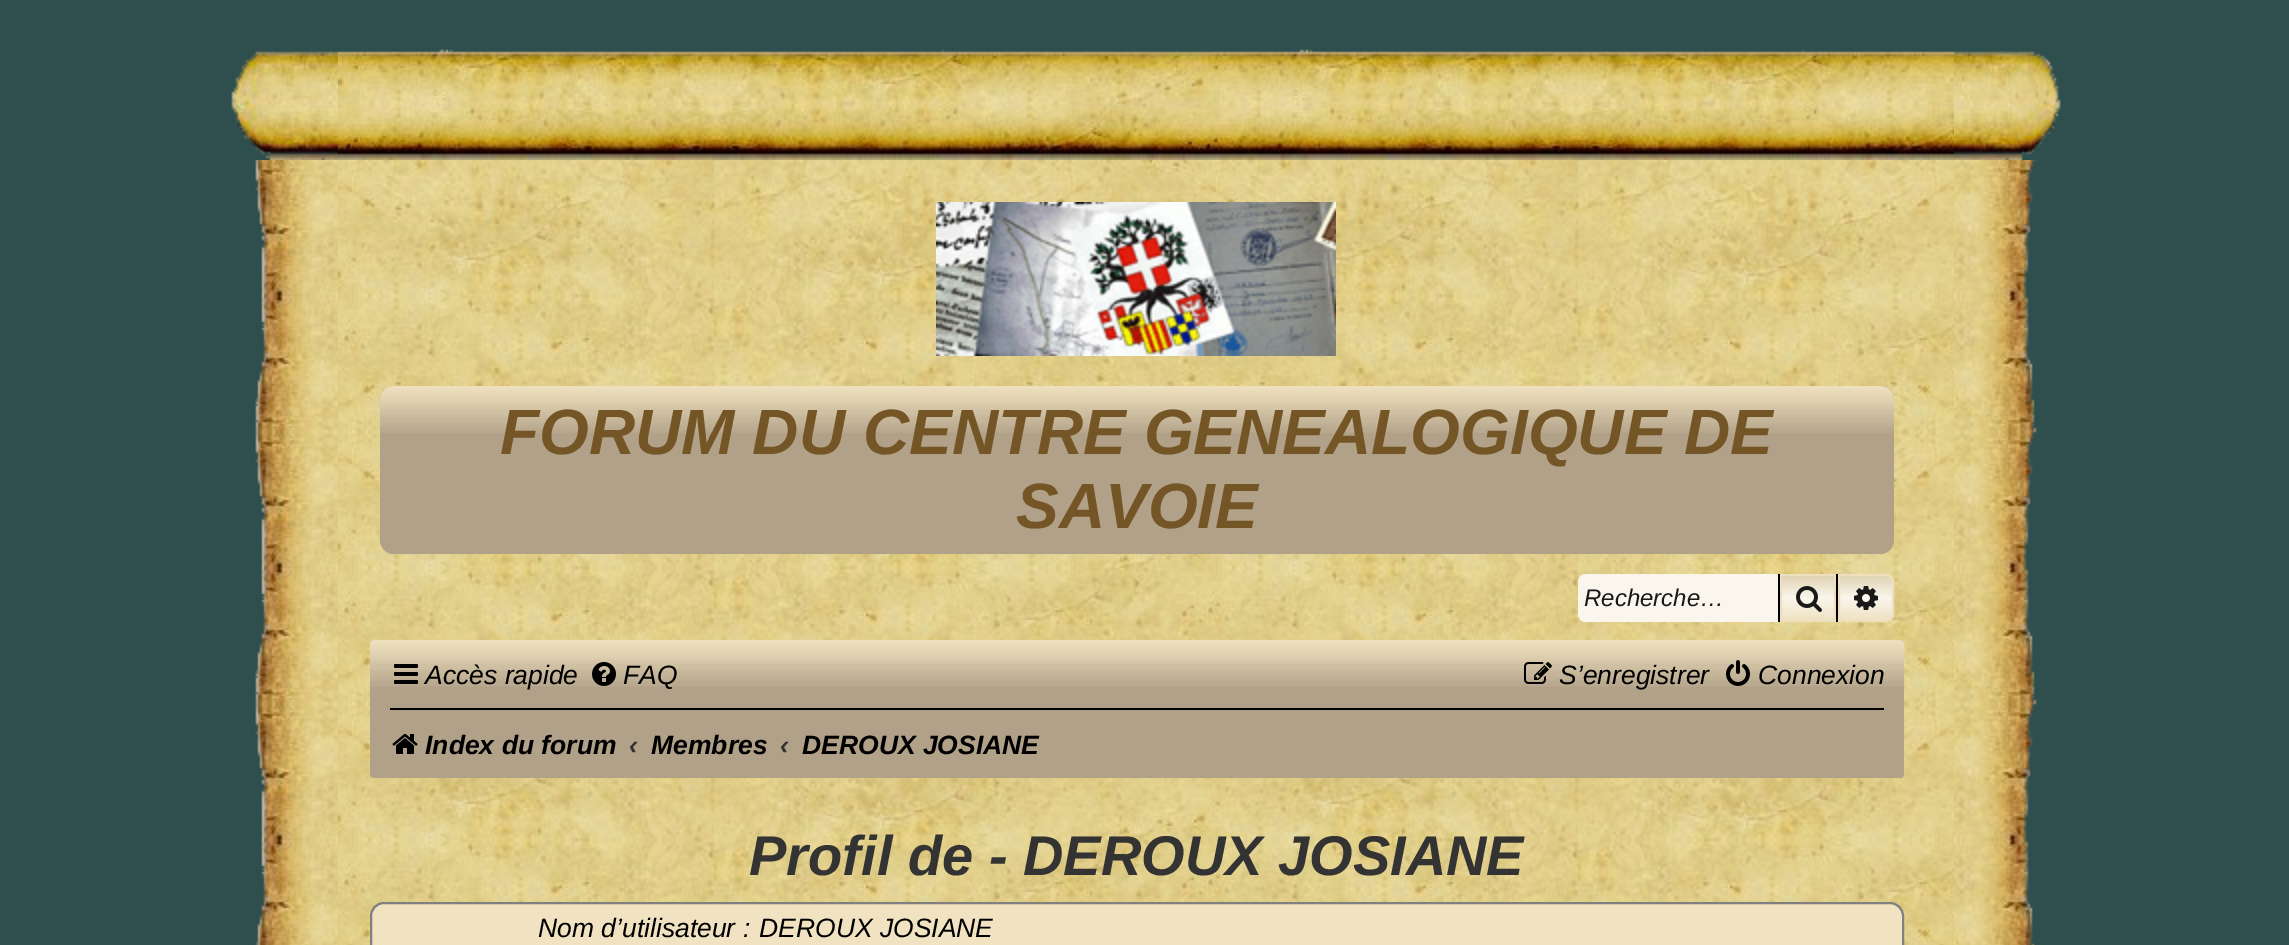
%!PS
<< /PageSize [2289 945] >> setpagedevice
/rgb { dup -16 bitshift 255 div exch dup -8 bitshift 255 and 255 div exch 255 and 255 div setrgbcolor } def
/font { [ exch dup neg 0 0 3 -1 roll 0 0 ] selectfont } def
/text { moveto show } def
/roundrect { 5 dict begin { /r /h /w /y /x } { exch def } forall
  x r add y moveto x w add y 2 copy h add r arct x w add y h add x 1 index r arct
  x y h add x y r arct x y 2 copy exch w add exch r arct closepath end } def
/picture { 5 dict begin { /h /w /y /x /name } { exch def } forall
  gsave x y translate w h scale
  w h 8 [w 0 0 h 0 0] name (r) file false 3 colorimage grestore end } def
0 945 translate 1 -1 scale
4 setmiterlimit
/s1 { /LiberationSans-BoldItalic 64 font 16#745626 rgb } def
/s2 { /LiberationSans-Italic 24 font 16#191919 rgb } def
/s3 { /LiberationSans-Italic 26.5 font 16#000000 rgb } def
/s4 { /LiberationSans-BoldItalic 26.5 font 16#000000 rgb } def
/s5 { /LiberationSans-BoldItalic 26.5 font 16#333333 rgb } def
/s6 { /LiberationSans-BoldItalic 56 font 16#333333 rgb } def
16#2F4F4F rgb
0 0 2289 945 rectfill
(pic1.raw) 231 51 107 109 picture
(pic2.raw) 338 49 1616 111 picture
(pic3.raw) 1954 51 107 109 picture
(pic4.raw) 255 160 83 785 picture
(pic5.raw) 338 160 1616 785 picture
(pic6.raw) 936 202 400 154 picture
16#B1A189 rgb
380 386 1514 168 14 roundrect fill
(pic7.raw) 380 386 1514 47 picture
s1
(FORUM DU CENTRE GENEALOGIQUE DE) 500 454 text
(SAVOIE) 1016 528 text
16#FAF6ED rgb
1586 574 moveto 1778 574 lineto 1778 622 lineto 1586 622 lineto 1581.5 622 1578 618.5 1578 614 curveto 1578 582 lineto 1578 577.5 1581.5 574 1586 574 curveto closepath fill
s2
(Recherche…) 1584 606 text
gsave 1782 576 moveto 1834 576 lineto 1834 620 lineto 1782 620 lineto closepath clip newpath
<< /ShadingType 2 /ColorSpace /DeviceRGB /Coords [1808 574 1808 622] /Extend [true true] /Function << /FunctionType 3 /Domain [0 1] /Functions [<< /FunctionType 2 /Domain [0 1] /C0 [0.871 0.816 0.682] /C1 [0.98 0.965 0.929] /N 1 >> << /FunctionType 2 /Domain [0 1] /C0 [0.98 0.965 0.929] /C1 [0.933 0.878 0.749] /N 1 >>] /Bounds [0.5] /Encode [0 1 0 1] >> >> shfill grestore
16#EEE0BF rgb
2 setlinewidth
1781 575 54 46 rectstroke
16#000000 rgb
1836 574 2 48 rectfill
1778 574 2 48 rectfill
(pic8.raw) 1796 586 26 26 picture
gsave 1839 575 moveto 1886 575 lineto 1890 575 1893 578 1893 582 curveto 1893 614 lineto 1893 618 1890 621 1886 621 curveto 1839 621 lineto closepath clip newpath
<< /ShadingType 2 /ColorSpace /DeviceRGB /Coords [1866 574 1866 622] /Extend [true true] /Function << /FunctionType 3 /Domain [0 1] /Functions [<< /FunctionType 2 /Domain [0 1] /C0 [0.871 0.816 0.682] /C1 [0.98 0.965 0.929] /N 1 >> << /FunctionType 2 /Domain [0 1] /C0 [0.98 0.965 0.929] /C1 [0.933 0.878 0.749] /N 1 >>] /Bounds [0.5] /Encode [0 1 0 1] >> >> shfill grestore
16#EEE0BF rgb
1839 575 moveto 1886 575 lineto 1890 575 1893 578 1893 582 curveto 1893 614 lineto 1893 618 1890 621 1886 621 curveto 1839 621 lineto closepath stroke
(pic9.raw) 1854 586 24 24 picture
16#B1A189 rgb
370 640 1534 138 4 roundrect fill
(pic10.raw) 370 640 1534 47 picture
(pic11.raw) 394 664 24 20 picture
s3
(Accès rapide) 425 684 text
(pic12.raw) 592 662 24 24 picture
(FAQ) 623 684 text
(pic13.raw) 1524 662 28 22 picture
(S’enregistrer) 1559 684 text
(pic14.raw) 1726 660 24 26 picture
(Connexion) 1758 684 text
390 708 1494 2 rectfill
(pic15.raw) 392 734 26 20 picture
s4
(Index du forum) 425 754 text
s5
(‹) 629 754 text
s4
(Membres) 651 754 text
s5
(‹) 780 754 text
s4
(DEROUX JOSIANE) 802 754 text
s6
(Profil de - DEROUX JOSIANE) 749 875 text
16#F1E3C1 rgb
371 903 1532 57 13 roundrect gsave fill grestore
16#808080 rgb
stroke
s3
(Nom d’utilisateur :) 538 937 text
(DEROUX JOSIANE) 759 937 text
(pic16.raw) 1954 160 83 785 picture
showpage
